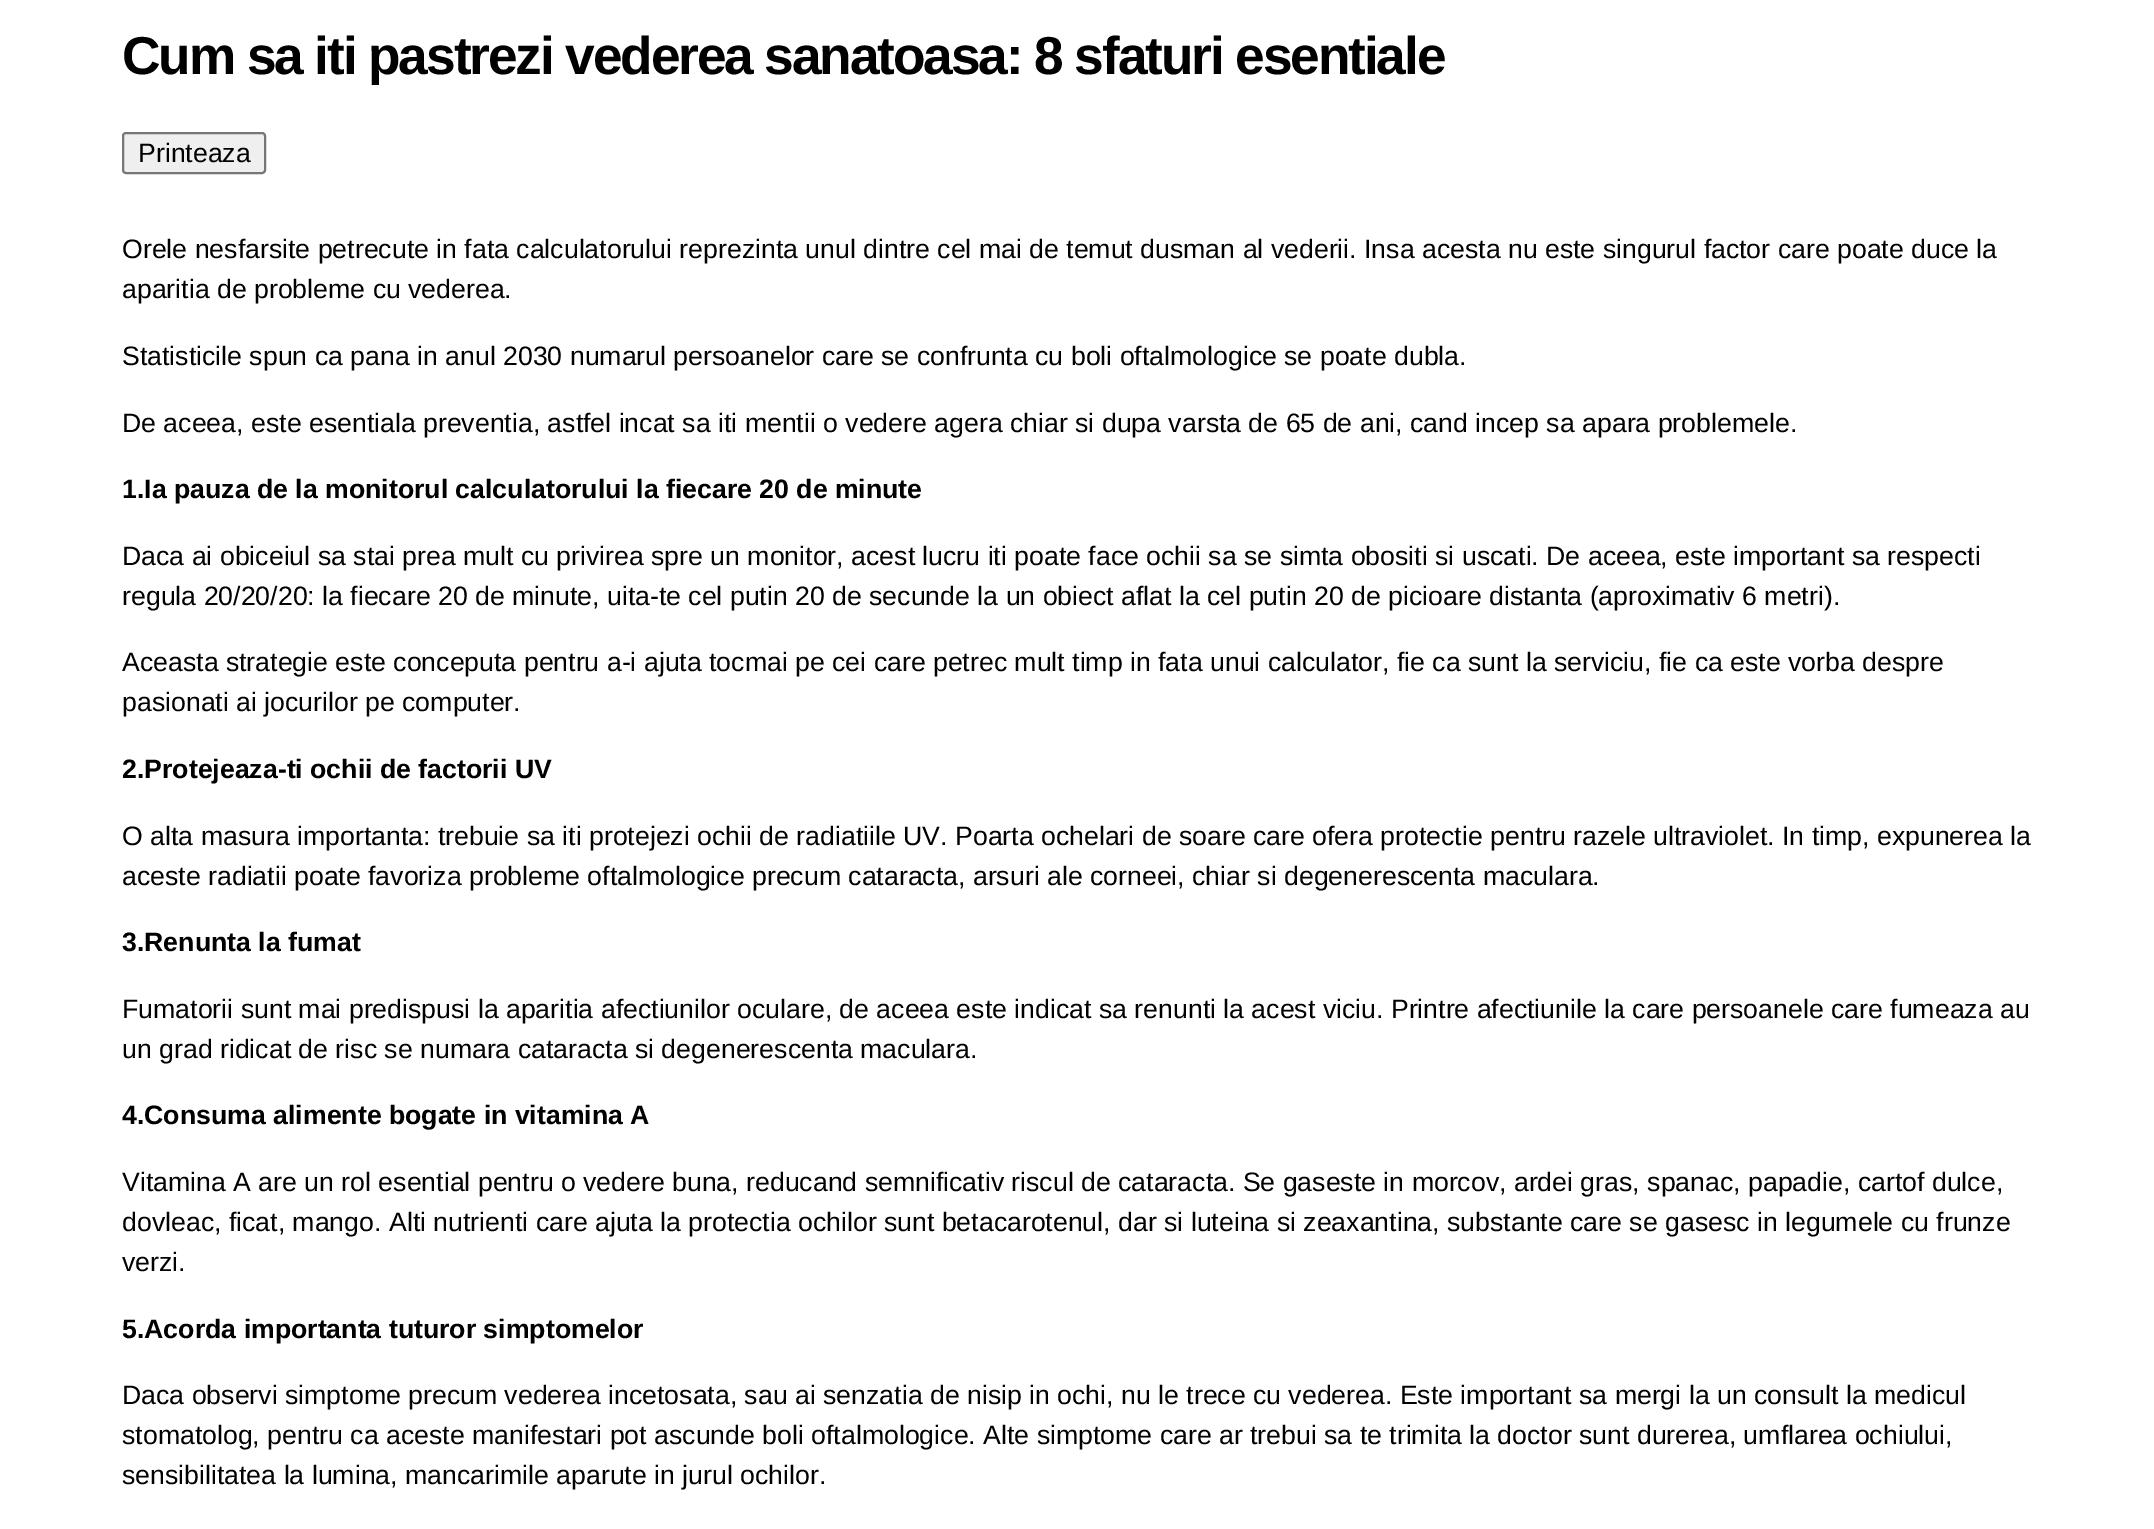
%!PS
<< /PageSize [2154 1529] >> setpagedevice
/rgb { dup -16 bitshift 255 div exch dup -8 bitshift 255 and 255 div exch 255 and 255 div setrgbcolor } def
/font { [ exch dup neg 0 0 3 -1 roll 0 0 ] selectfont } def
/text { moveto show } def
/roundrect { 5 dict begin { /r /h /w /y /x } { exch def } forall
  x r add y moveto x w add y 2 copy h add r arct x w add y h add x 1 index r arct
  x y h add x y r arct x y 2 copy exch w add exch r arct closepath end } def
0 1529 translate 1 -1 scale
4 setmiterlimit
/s1 { /LiberationSans-Regular 26.67 font 16#000000 rgb } def
/s2 { /LiberationSans-Bold 26.67 font 16#000000 rgb } def
16#FFFFFF rgb
0 0 2154 1529 rectfill
/LiberationSans-Bold 53.3 font
16#000000 rgb
122 74 moveto -2.13 0 (Cum sa iti pastrezi vederea sanatoasa: 8 sfaturi esentiale) ashow
16#EFEFEF rgb
123 133 142 40 3 roundrect gsave fill grestore
16#767676 rgb
2 setlinewidth
stroke
s1
(Printeaza) 138 162 text
(Orele nesfarsite petrecute in fata calculatorului reprezinta unul dintre cel mai de temut dusman al vederii. Insa acesta nu este singurul factor care poate duce la) 122 258 text
(aparitia de probleme cu vederea.) 122 298 text
(Statisticile spun ca pana in anul 2030 numarul persoanelor care se confrunta cu boli oftalmologice se poate dubla.) 122 365 text
(De aceea, este esentiala preventia, astfel incat sa iti mentii o vedere agera chiar si dupa varsta de 65 de ani, cand incep sa apara problemele.) 122 432 text
s2
(1.Ia pauza de la monitorul calculatorului la fiecare 20 de minute) 122 498 text
s1
(Daca ai obiceiul sa stai prea mult cu privirea spre un monitor, acest lucru iti poate face ochii sa se simta obositi si uscati. De aceea, este important sa respecti) 122 565 text
(regula 20/20/20: la fiecare 20 de minute, uita-te cel putin 20 de secunde la un obiect aflat la cel putin 20 de picioare distanta \(aproximativ 6 metri\).) 122 605 text
(Aceasta strategie este conceputa pentru a-i ajuta tocmai pe cei care petrec mult timp in fata unui calculator, fie ca sunt la serviciu, fie ca este vorba despre) 122 671 text
(pasionati ai jocurilor pe computer.) 122 711 text
s2
(2.Protejeaza-ti ochii de factorii UV) 122 778 text
s1
(O alta masura importanta: trebuie sa iti protejezi ochii de radiatiile UV. Poarta ochelari de soare care ofera protectie pentru razele ultraviolet. In timp, expunerea la) 122 845 text
(aceste radiatii poate favoriza probleme oftalmologice precum cataracta, arsuri ale corneei, chiar si degenerescenta maculara.) 122 885 text
s2
(3.Renunta la fumat) 122 951 text
s1
(Fumatorii sunt mai predispusi la aparitia afectiunilor oculare, de aceea este indicat sa renunti la acest viciu. Printre afectiunile la care persoanele care fumeaza au) 122 1018 text
(un grad ridicat de risc se numara cataracta si degenerescenta maculara.) 122 1058 text
s2
(4.Consuma alimente bogate in vitamina A) 122 1124 text
s1
(Vitamina A are un rol esential pentru o vedere buna, reducand semnificativ riscul de cataracta. Se gaseste in morcov, ardei gras, spanac, papadie, cartof dulce,) 122 1191 text
(dovleac, ficat, mango. Alti nutrienti care ajuta la protectia ochilor sunt betacarotenul, dar si luteina si zeaxantina, substante care se gasesc in legumele cu frunze) 122 1231 text
(verzi.) 122 1271 text
s2
(5.Acorda importanta tuturor simptomelor) 122 1338 text
s1
(Daca observi simptome precum vederea incetosata, sau ai senzatia de nisip in ochi, nu le trece cu vederea. Este important sa mergi la un consult la medicul) 122 1404 text
(stomatolog, pentru ca aceste manifestari pot ascunde boli oftalmologice. Alte simptome care ar trebui sa te trimita la doctor sunt durerea, umflarea ochiului,) 122 1444 text
(sensibilitatea la lumina, mancarimile aparute in jurul ochilor.) 122 1484 text
showpage
